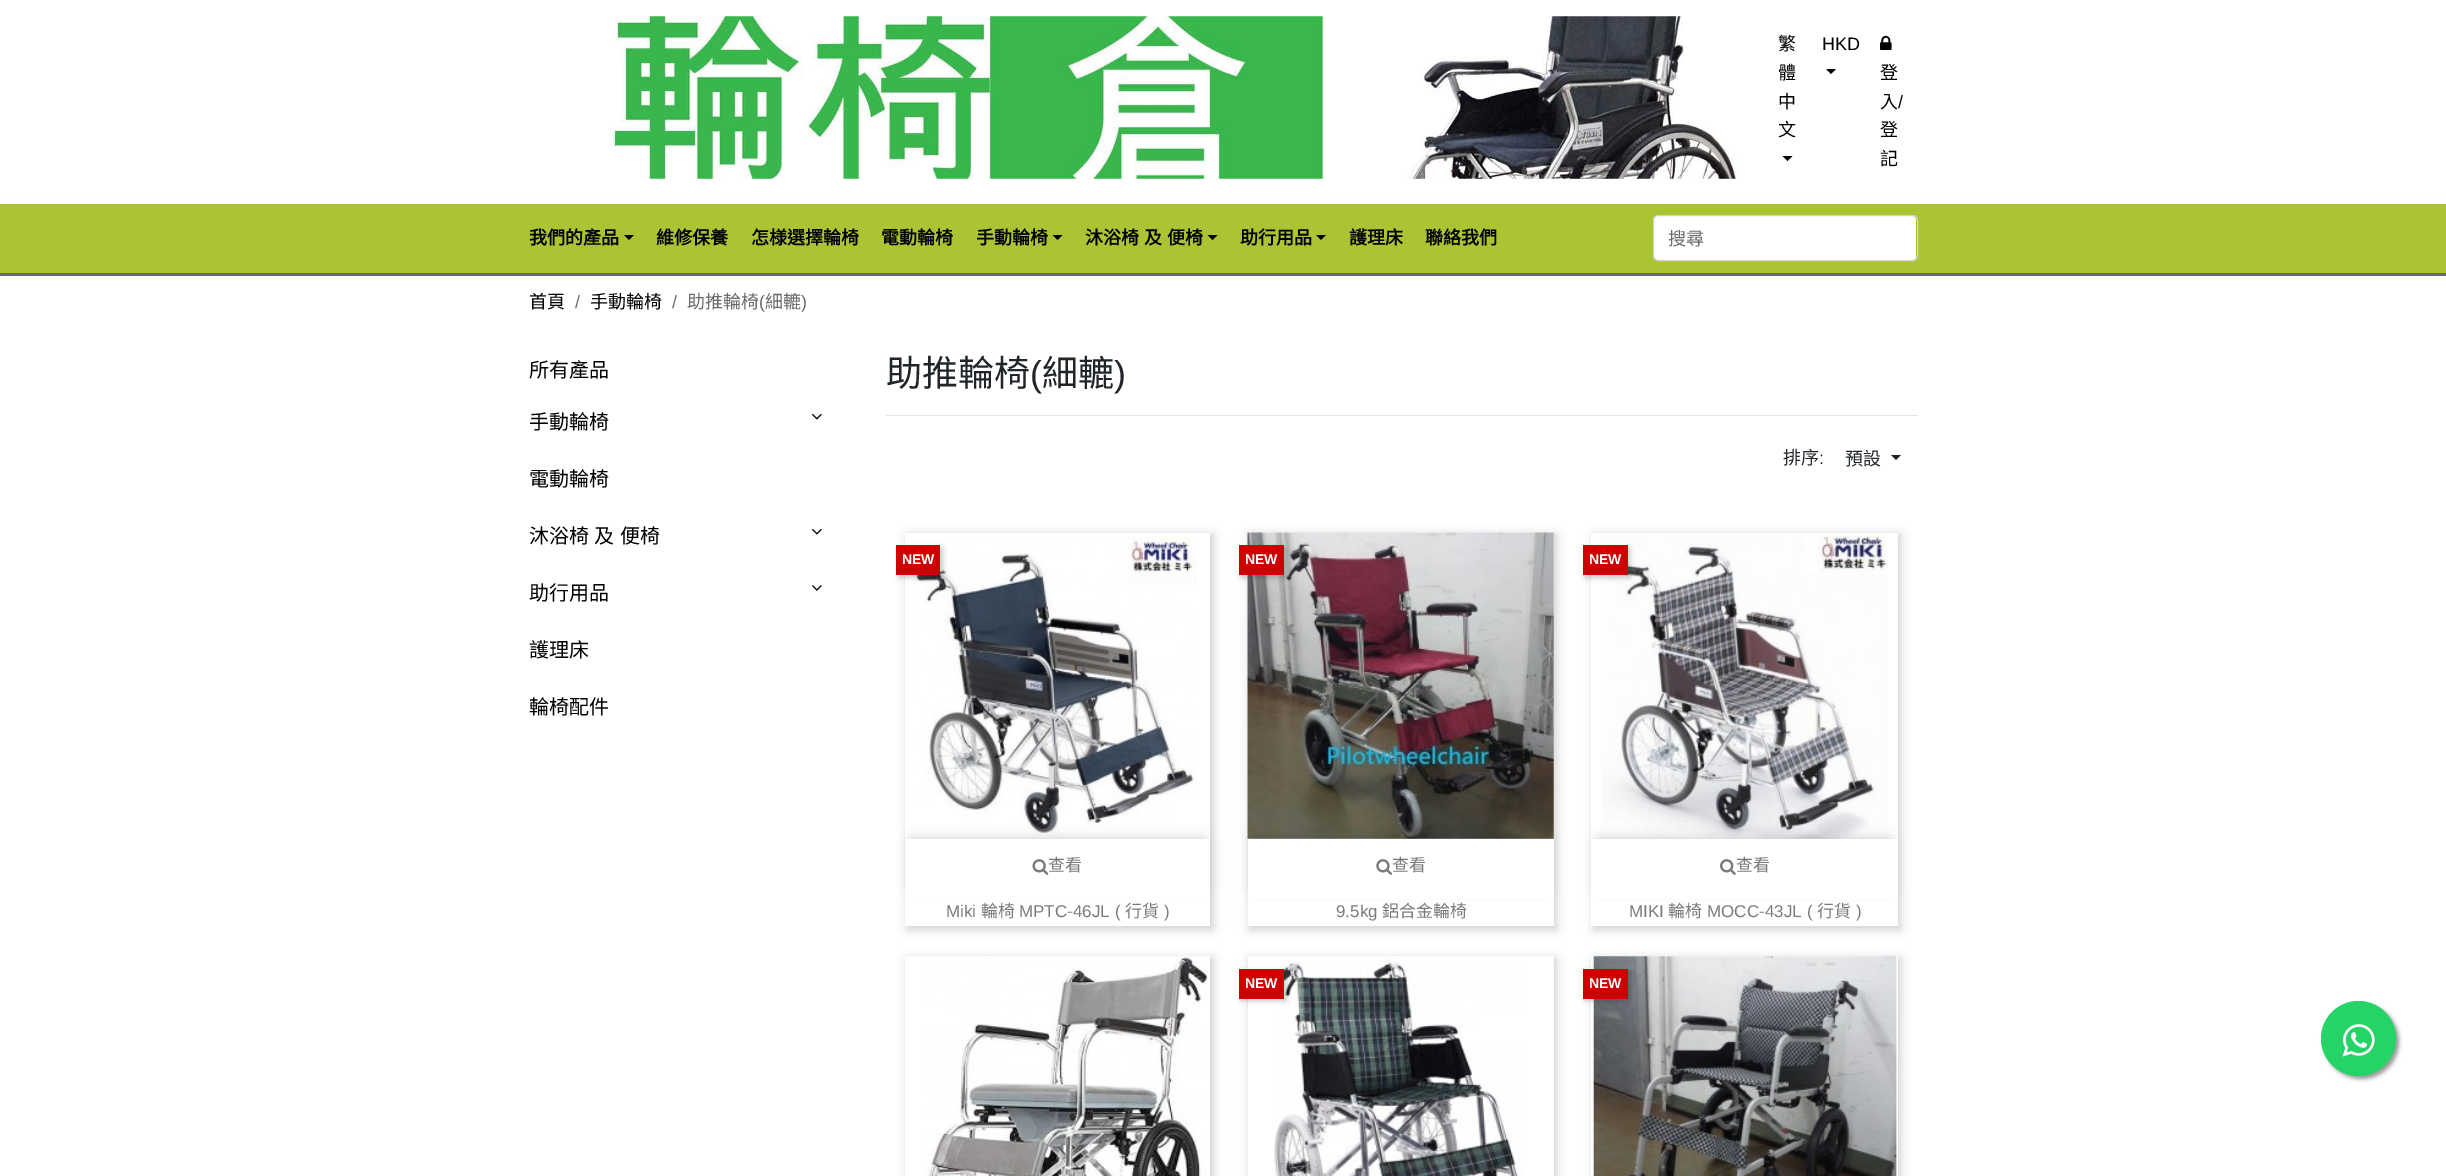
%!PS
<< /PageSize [2446 1176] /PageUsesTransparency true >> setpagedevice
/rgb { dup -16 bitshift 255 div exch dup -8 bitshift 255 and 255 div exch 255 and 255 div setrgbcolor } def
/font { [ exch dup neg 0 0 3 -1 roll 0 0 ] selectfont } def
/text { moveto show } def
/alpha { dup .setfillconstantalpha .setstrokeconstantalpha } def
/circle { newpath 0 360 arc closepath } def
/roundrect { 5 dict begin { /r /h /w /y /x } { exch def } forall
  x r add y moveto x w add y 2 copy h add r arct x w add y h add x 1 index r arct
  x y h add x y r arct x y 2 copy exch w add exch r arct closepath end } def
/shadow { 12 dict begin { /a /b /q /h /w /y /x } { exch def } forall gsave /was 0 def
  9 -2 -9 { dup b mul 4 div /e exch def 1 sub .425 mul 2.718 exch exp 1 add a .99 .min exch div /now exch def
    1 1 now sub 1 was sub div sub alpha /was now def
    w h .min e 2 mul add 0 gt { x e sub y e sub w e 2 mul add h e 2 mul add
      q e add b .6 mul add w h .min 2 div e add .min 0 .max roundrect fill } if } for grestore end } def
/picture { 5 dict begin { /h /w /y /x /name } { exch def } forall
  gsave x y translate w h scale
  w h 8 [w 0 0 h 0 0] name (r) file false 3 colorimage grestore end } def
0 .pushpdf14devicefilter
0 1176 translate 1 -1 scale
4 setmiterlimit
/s1 { /NotoSansCJKHK-Regular 18 font 16#000000 rgb } def
/s2 { /LiberationSans-Regular 18 font 16#000000 rgb } def
/s3 { /NotoSansCJKHK-Bold 18 font 16#000000 rgb } def
/s4 { /NotoSansCJKHK-Regular 18 font 16#6A6A6A rgb } def
/s5 { /LiberationSans-Regular 18 font 16#6A6A6A rgb } def
/s6 { /NotoSansCJKHK-Regular 20 font 16#000000 rgb } def
/s7 { /NotoSansCJKHK-Regular 36 font 16#212529 rgb } def
/s8 { /LiberationSans-Regular 36 font 16#212529 rgb } def
/s9 { /NotoSansCJKHK-Regular 18 font 16#212529 rgb } def
/s10 { /LiberationSans-Regular 18 font 16#212529 rgb } def
/s11 { /LiberationSans-Bold 14 font 16#FFFFFF rgb } def
/s12 { /NotoSansCJKHK-Regular 17 font 16#7A7A7A rgb } def
/s13 { /LiberationSans-Regular 17 font 16#7A7A7A rgb } def
16#FFFFFF rgb
0 0 2446 1176 rectfill
(pic1.raw) 610 16 1129 163 picture
s1
(繁) 1778 50 text
(體) 1778 79 text
(中) 1778 108 text
(文) 1778 136 text
1782.5 156 moveto 1792.5 156 lineto 1787.5 161 lineto closepath fill
s2
(HKD) 1822 50 text
1826 69 moveto 1836 69 lineto 1831 74 lineto closepath fill
(pic2.raw) 1880 35 12 15 picture
s1
(登) 1880 79 text
(入) 1880 108 text
s2
(/) 1898 108 text
s1
(登) 1880 136 text
(記) 1880 165 text
16#6A6A6A rgb
0 273 2446 3 rectfill
16#ABC434 rgb
0 204 2446 69 rectfill
s3
(我們的產品) 529 244 text
624 235 moveto 634 235 lineto 629 240 lineto closepath fill
(維修保養) 656 244 text
(怎様選擇輪椅) 751 244 text
(電動輪椅) 881 244 text
(手動輪椅) 976 244 text
1052.5 235 moveto 1062.5 235 lineto 1057.5 240 lineto closepath fill
1085 244 moveto 1 0 32 (沐浴椅 及 便椅) widthshow
1207.5 235 moveto 1217.5 235 lineto 1212.5 240 lineto closepath fill
(助行用品) 1240 244 text
1316 235 moveto 1326 235 lineto 1321 240 lineto closepath fill
(護理床) 1349 244 text
(聯絡我們) 1425 244 text
16#FFFFFF rgb
1654 216 262 44 4 roundrect fill
16#CED4DA rgb
1653.5 215.5 264 45 4.5 roundrect stroke
s4
(搜尋) 1668 245 text
s1
(首頁) 529 308 text
s5
(/) 575 308 text
s1
(手動輪椅) 590 308 text
s5
(/) 672 308 text
s4
(助推輪椅) 687 308 text
s5
(\() 759 308 text
s4
(細轆) 765 308 text
s5
(\)) 801 308 text
s6
(所有產品) 529 377 text
(手動輪椅) 529 429 text
(pic3.raw) 812 413 10 7 picture
(電動輪椅) 529 486 text
529 543 moveto 1 0 32 (沐浴椅 及 便椅) widthshow
(pic3.raw) 812 528 10 7 picture
(助行用品) 529 600 text
(pic4.raw) 812 585 10 6 picture
(護理床) 529 657 text
(輪椅配件) 529 714 text
s7
(助推輪椅) 886 386 text
s8
(\() 1030 386 text
s7
(細轆) 1042 386 text
s8
(\)) 1114 386 text
16#E6E6E6 rgb
886 415 1032 1 rectfill
s9
(排序) 1783 464 text
s10
(:) 1819 464 text
s9
(預設) 1845 465 text
1891 455 moveto 1901 455 lineto 1896 460 lineto closepath fill
gsave
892 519 moveto 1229 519 lineto 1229 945 lineto 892 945 lineto closepath 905 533 moveto 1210 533 lineto 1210 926 lineto 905 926 lineto closepath eoclip newpath
16#000000 rgb
908 535 305 394 0 5 0.2 shadow
grestore
(pic5.raw) 914 533 284 302 picture
16#000000 rgb
899 548 44 30 0 2.5 0.2 shadow
16#CF0000 rgb
896 545 44 30 rectfill
s11
(NEW) 902 564 text
gsave
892 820 moveto 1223 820 lineto 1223 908 lineto 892 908 lineto closepath 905 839 moveto 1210 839 lineto 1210 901 lineto 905 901 lineto closepath eoclip newpath
16#000000 rgb
911 839 293 50 0 6 0.2 shadow
grestore
(pic6.raw) 1032 859 17 16 picture
s12
(查看) 1048 871 text
s13
(Miki) 946 917 text
s12
(輪椅) 981 917 text
s13
(MPTC) 1019 917 text
s12
(‑) 1067 917 text
s13
(46JL \() 1073 917 text
s12
(行貨) 1125 917 text
s13
(\)) 1164 917 text
16#000000 rgb
1250 535 306 394 0 5 0.2 shadow
16#FFFFFF rgb
1248 533 306 393 rectfill
(pic7.raw) 1247 532 307 307 picture
16#000000 rgb
1241 548 45 30 0 2.5 0.2 shadow
16#CF0000 rgb
1239 545 45 30 rectfill
s11
(NEW) 1245 564 text
16#000000 rgb
1254 839 294 50 0 6 0.2 shadow
16#FFFFFF rgb
1248 839 306 60 rectfill
(pic8.raw) 1376 859 16 16 picture
s12
(查看) 1392 871 text
s13
(9.5kg) 1336 917 text
s12
(鋁合金輪椅) 1382 917 text
16#000000 rgb
1594 535 306 394 0 5 0.2 shadow
16#FFFFFF rgb
1591 533 307 393 rectfill
(pic9.raw) 1601 533 287 306 picture
16#000000 rgb
1585 548 45 30 0 2.5 0.2 shadow
16#CF0000 rgb
1583 545 45 30 rectfill
s11
(NEW) 1589 564 text
16#000000 rgb
1598 839 293 50 0 6 0.2 shadow
16#FFFFFF rgb
1591 839 307 60 rectfill
(pic10.raw) 1720 859 16 16 picture
s12
(查看) 1736 871 text
s13
(MIKI) 1629 917 text
s12
(輪椅) 1668 917 text
s13
(MOCC) 1707 917 text
s12
(‑) 1759 917 text
s13
(43JL \() 1765 917 text
s12
(行貨) 1817 917 text
s13
(\)) 1856 917 text
16#000000 rgb
908 959 305 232 0 5 0.2 shadow
16#FFFFFF rgb
905 956 305 220 rectfill
(pic11.raw) 926 956 282 220 picture
16#000000 rgb
1250 959 306 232 0 5 0.2 shadow
16#FFFFFF rgb
1248 956 306 220 rectfill
(pic12.raw) 1274 956 248 220 picture
16#000000 rgb
1241 971 45 30 0 2.5 0.2 shadow
16#CF0000 rgb
1239 969 45 30 rectfill
s11
(NEW) 1245 988 text
16#000000 rgb
1594 959 306 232 0 5 0.2 shadow
16#FFFFFF rgb
1591 956 307 220 rectfill
(pic13.raw) 1591 956 307 220 picture
16#000000 rgb
1585 971 45 30 0 2.5 0.2 shadow
16#CF0000 rgb
1583 969 45 30 rectfill
s11
(NEW) 1589 988 text
16#999999 rgb
2324 1004 75 75 37.5 2 1 shadow
16#25D366 rgb
2358.5 1038.5 37.5 circle fill
(pic14.raw) 2342 1024 33 33 picture
.poppdf14devicefilter showpage
